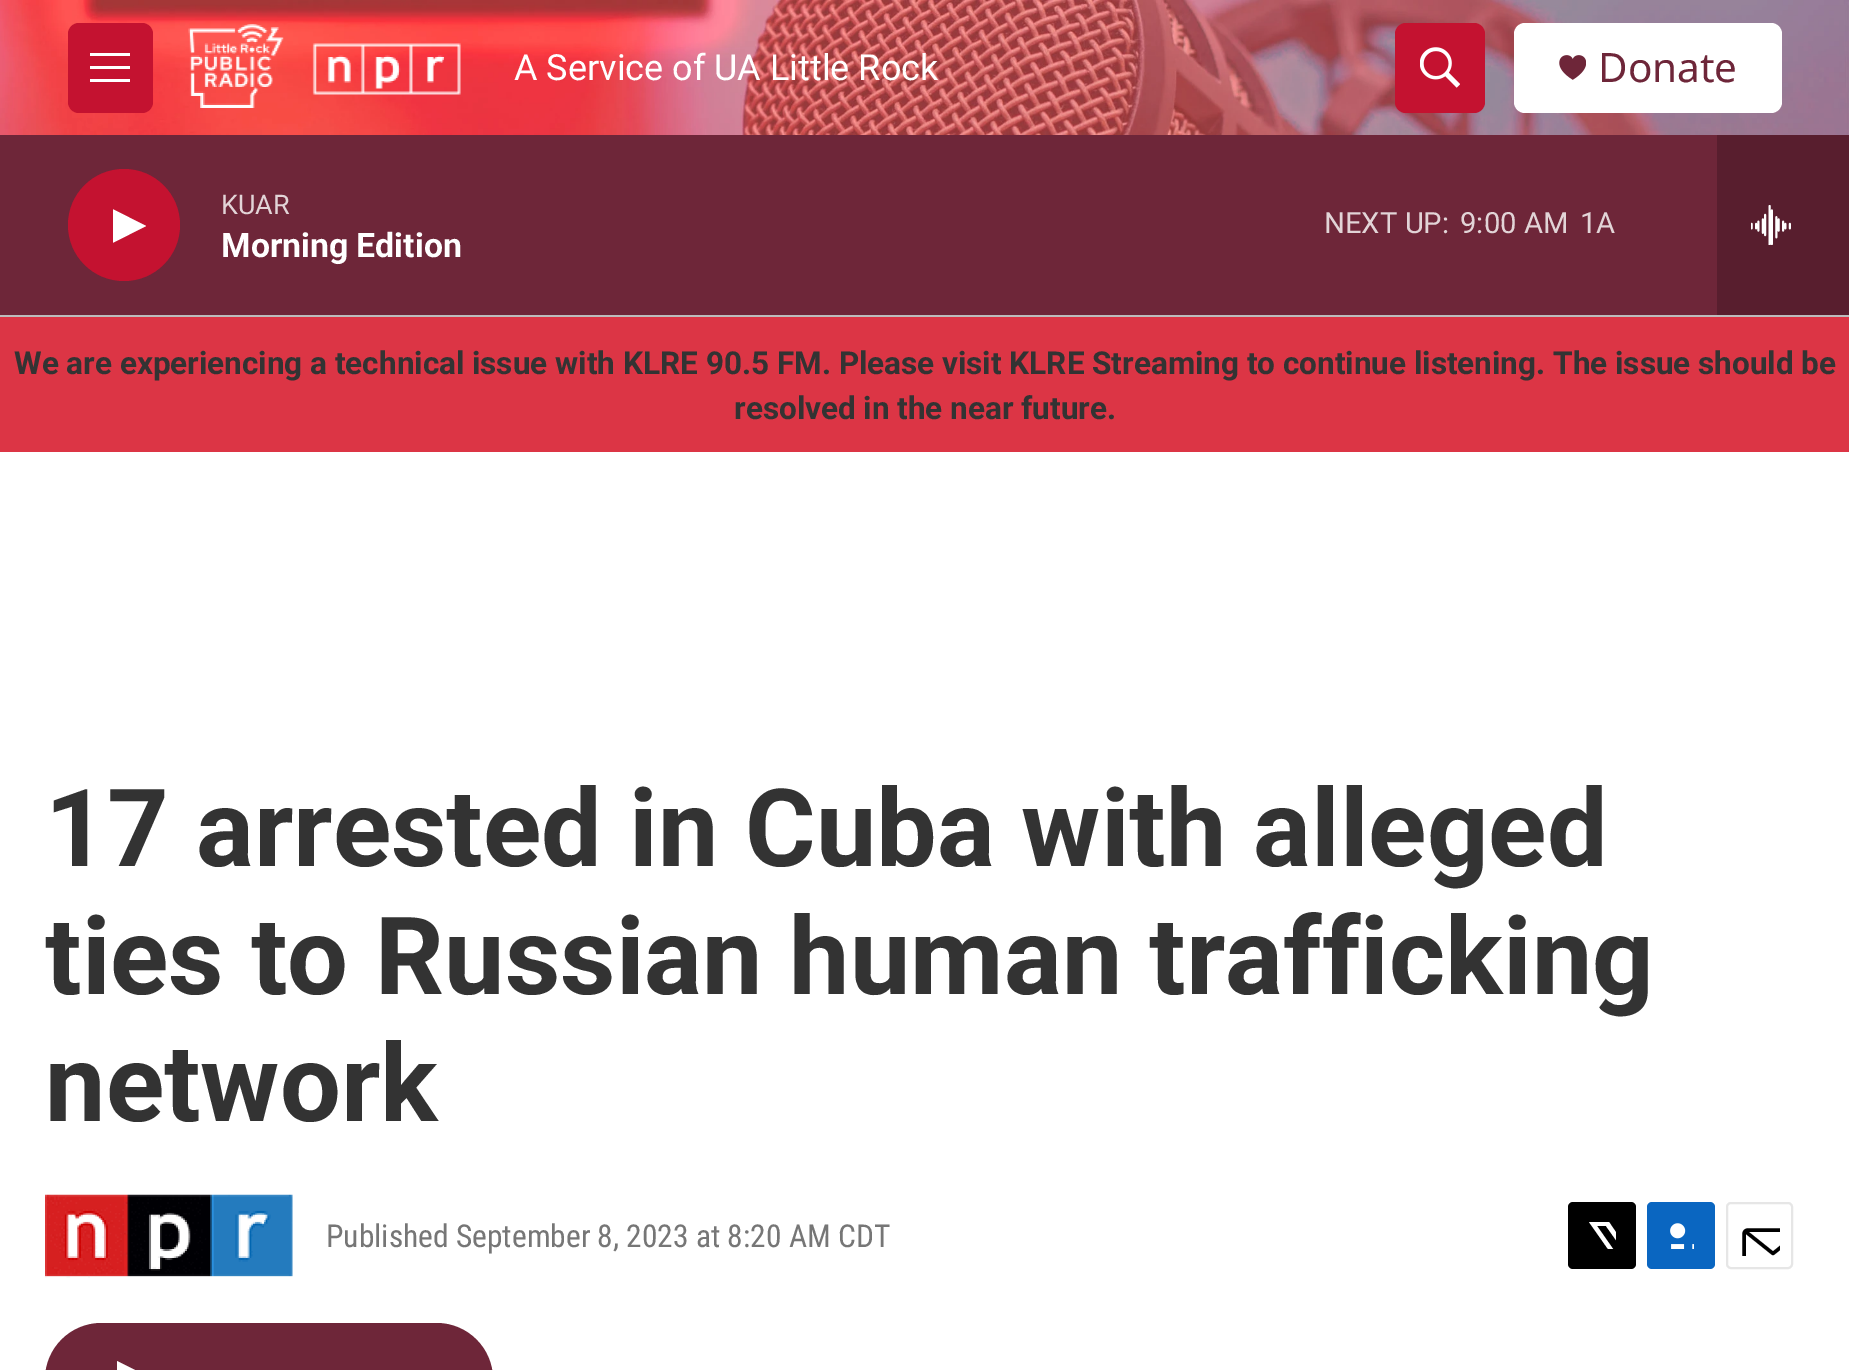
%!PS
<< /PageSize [1849 1370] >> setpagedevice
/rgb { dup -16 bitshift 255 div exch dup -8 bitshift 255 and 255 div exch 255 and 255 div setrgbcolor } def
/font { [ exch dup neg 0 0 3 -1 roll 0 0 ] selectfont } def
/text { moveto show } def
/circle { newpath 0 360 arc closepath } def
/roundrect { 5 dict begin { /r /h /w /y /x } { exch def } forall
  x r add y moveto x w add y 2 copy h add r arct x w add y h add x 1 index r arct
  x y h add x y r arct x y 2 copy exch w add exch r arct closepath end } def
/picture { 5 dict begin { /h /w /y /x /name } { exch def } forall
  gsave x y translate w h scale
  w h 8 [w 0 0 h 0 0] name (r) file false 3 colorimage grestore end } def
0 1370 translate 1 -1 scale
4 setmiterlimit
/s1 { /Roboto-Regular 36 font 16#FFFFFF rgb } def
/s2 { /NotoSans-Regular 40.5 font 16#6E2639 rgb } def
/s3 { /Roboto-Regular 27 font 16#E2D4D7 rgb } def
/s4 { /Roboto-Bold 33.75 font 16#FFFFFF rgb } def
/s5 { /Roboto-Regular 29.25 font 16#E2D4D7 rgb } def
/s6 { /Roboto-Bold 31.5 font 16#333333 rgb } def
/s7 { /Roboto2-Bold 108 font 16#333333 rgb } def
/s8 { /RobotoCondensed-Regular 31.5 font 16#767676 rgb } def
16#FFFFFF rgb
0 0 1849 1370 rectfill
16#6E2639 rgb
0 135 1717 180 rectfill
16#BDBDBD rgb
0 315 1849 2 rectfill
(pic1.raw) 0 0 1849 135 picture
16#C41230 rgb
68 23 85 90 11 roundrect fill
16#FFFFFF rgb
90 69 moveto 90 66 lineto 130 66 lineto 130 69 lineto closepath 90 56 moveto 90 53 lineto 130 53 lineto 130 56 lineto closepath 90 82 moveto 90 79 lineto 130 79 lineto 130 82 lineto closepath eofill
(pic2.raw) 188 24 273 84 picture
s1
(A Service of UA Little Rock) 514 80 text
16#C41230 rgb
1395 23 90 90 11 roundrect fill
(pic3.raw) 1420 47 40 41 picture
16#FFFFFF rgb
1514 23 268 90 11 roundrect fill
(pic4.raw) 1559 55 27 25 picture
s2
(Donate) 1598 82 text
16#C41230 rgb
124 225 56 circle fill
gsave
113 205 33 43 rectclip
16#FFFFFF rgb
112.5 209 moveto 146 226 lineto 112.5 243 lineto closepath fill
grestore
s3
(KUAR) 221 214 text
s4
(Morning Edition) 221 257 text
s5
(NEXT UP:) 1324 233 text
(9:00 AM) 1460 233 text
(1A) 1580 233 text
16#581E2E rgb
1717 135 132 180 rectfill
(pic5.raw) 1751 205 40 40 picture
16#DC3545 rgb
0 317 1849 135 rectfill
s6
(We are experiencing a technical issue with KLRE 90.5 FM. Please visit KLRE Streaming to continue listening. The issue should be) 14 374 text
(resolved in the near future.) 734 419 text
s7
(17 arrested in Cuba with alleged) 45 866 text
(ties to Russian human trafficking) 45 994 text
(network) 45 1121 text
(pic6.raw) 45 1194 248 84 picture
s8
(Published September 8, 2023 at 8:20 AM CDT) 326 1247 text
16#000000 rgb
1568 1202 68 67 5 roundrect fill
gsave
1589 1222 27 27 rectclip
16#FFFFFF rgb
1629 1250 moveto 1636 1260 lineto 1636 1263 1636 1265 1635 1267 curveto 1606 1226 lineto 1597 1226 lineto 1627 1269 lineto 1622 1269 lineto 1618 1263 lineto 1613 1269 lineto 1606 1269 lineto 1615 1259 lineto 1589 1222 lineto 1609 1222 lineto 1626 1247 lineto 1636 1235 lineto 1636 1242 lineto closepath fill
grestore
16#0A66C1 rgb
1647 1202 68 67 5 roundrect fill
(pic7.raw) 1670 1223 24 26 picture
16#E6E6E6 rgb
2 setlinewidth
1727 1203 65 65 4 roundrect stroke
gsave
1739 1215 41 41 rectclip
16#000000 rgb
3.4 setlinewidth
1 setlinecap
1 setlinejoin
1802 1264.5 moveto 1802 1266.5 1800 1268.5 1798 1268.5 curveto 1748 1268.5 lineto 1746 1268.5 1744 1266.5 1744 1264.5 curveto 1744 1234 lineto 1744 1231.5 1746 1230 1748 1230 curveto 1798 1230 lineto 1800 1230 1802 1231.5 1802 1234 curveto closepath 1800.5 1231.5 moveto 1773 1253.5 lineto 1745.5 1231.5 lineto stroke
grestore
16#6E2639 rgb
45 1323 448 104 56.5 roundrect fill
16#FFFFFF rgb
117 1361 moveto 153 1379 lineto 117 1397 lineto closepath fill
showpage
